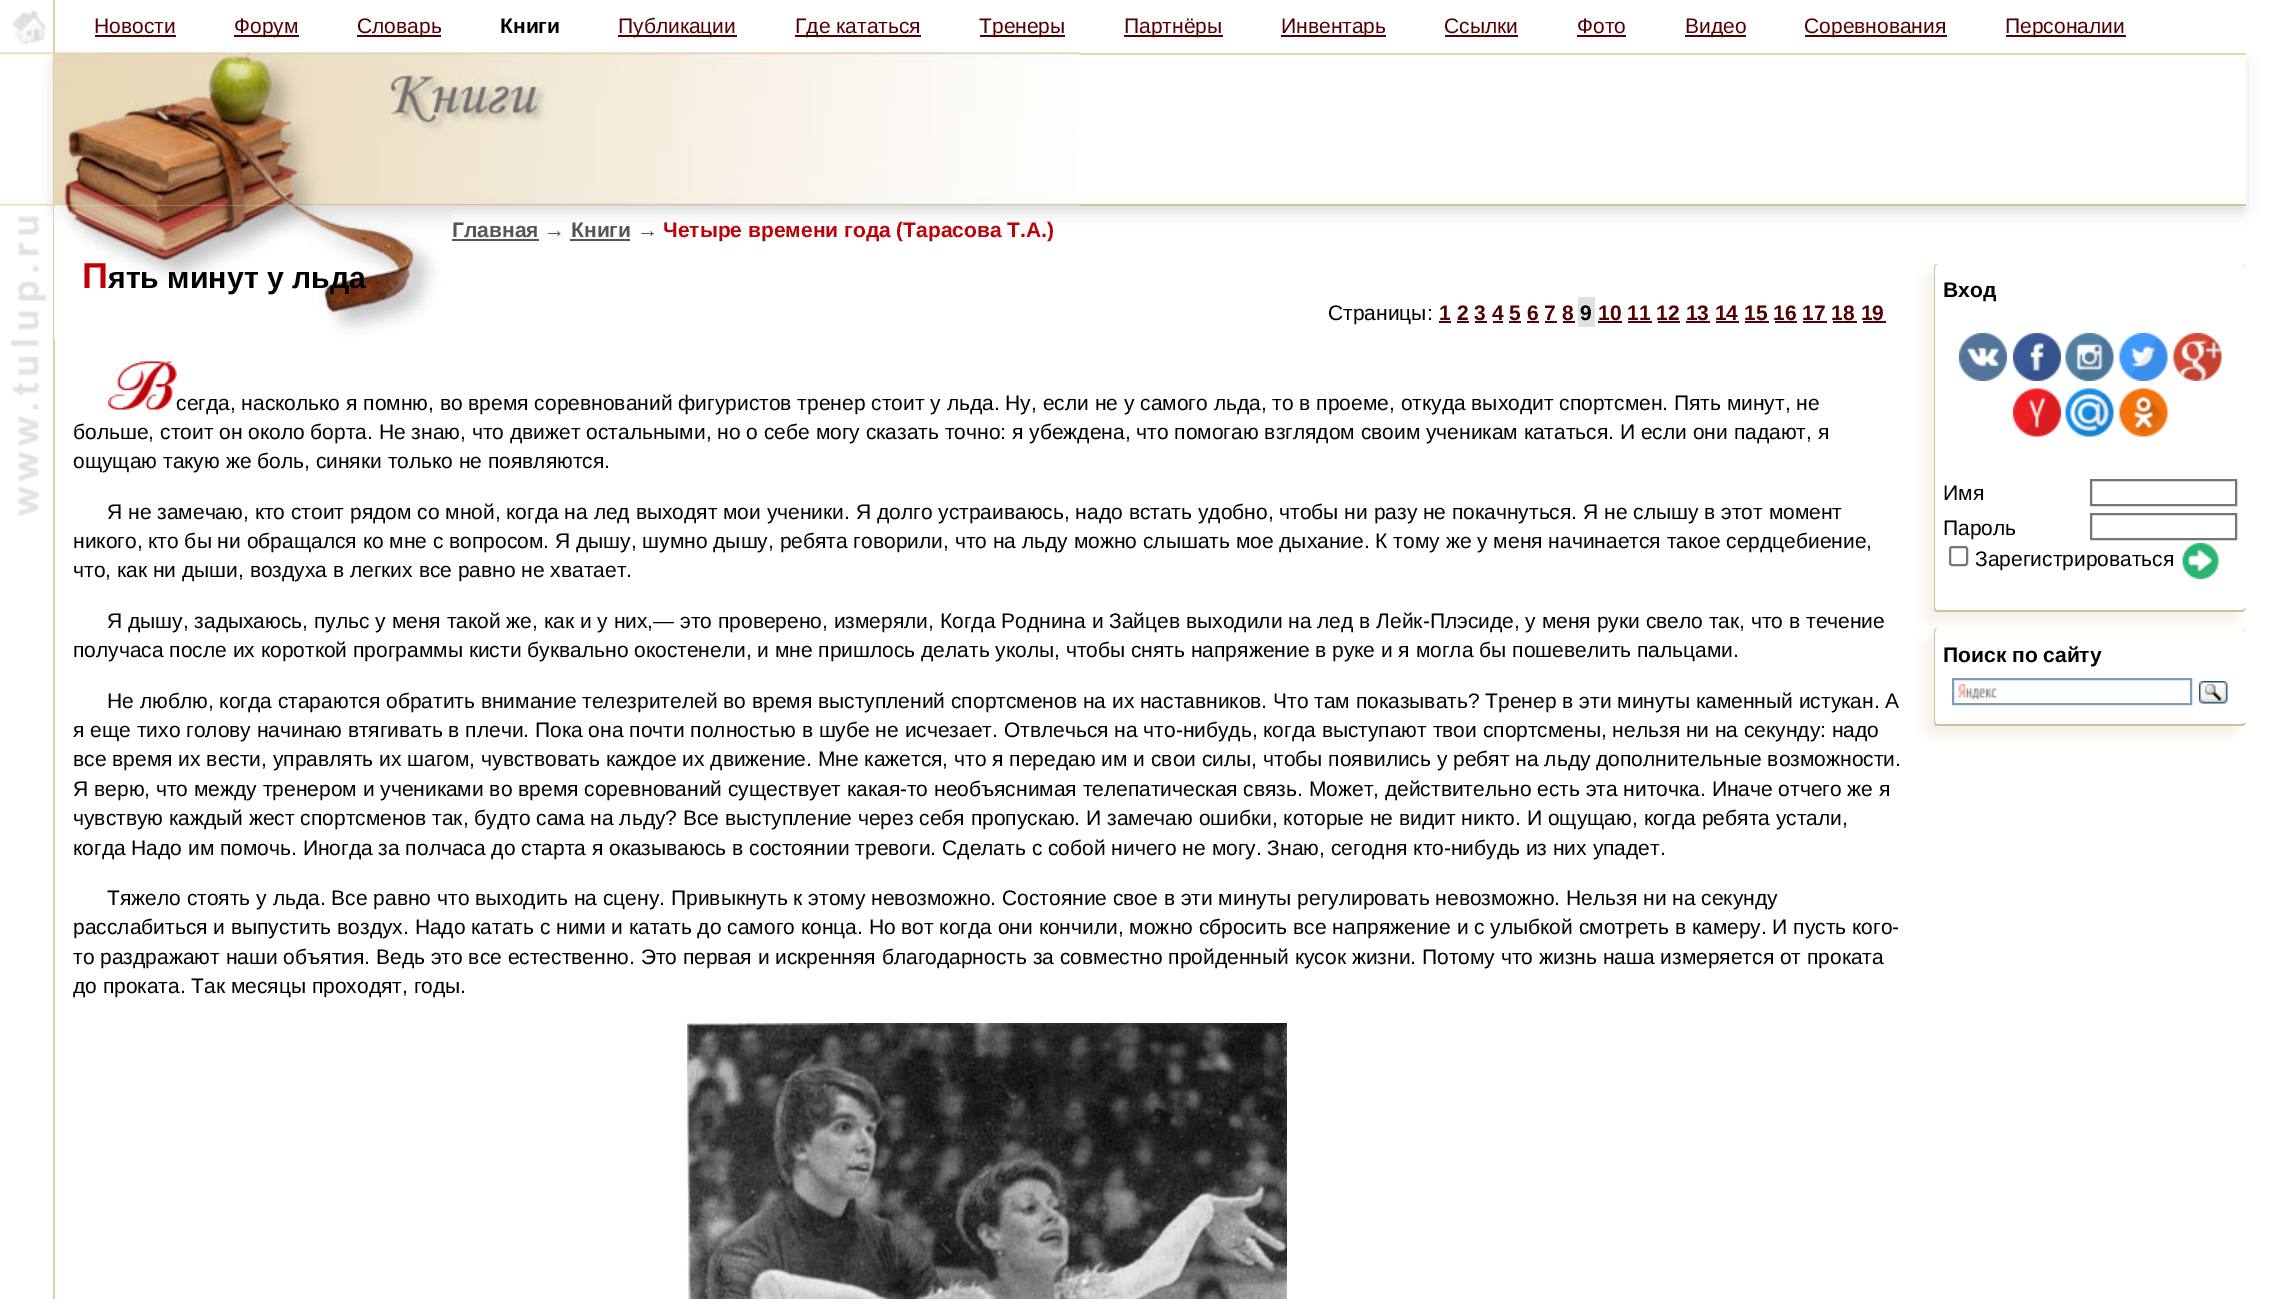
%!PS
<< /PageSize [2275 1299] /PageUsesTransparency true >> setpagedevice
/rgb { dup -16 bitshift 255 div exch dup -8 bitshift 255 and 255 div exch 255 and 255 div setrgbcolor } def
/font { [ exch dup neg 0 0 3 -1 roll 0 0 ] selectfont } def
/text { moveto show } def
/alpha { dup .setfillconstantalpha .setstrokeconstantalpha } def
/roundrect { 5 dict begin { /r /h /w /y /x } { exch def } forall
  x r add y moveto x w add y 2 copy h add r arct x w add y h add x 1 index r arct
  x y h add x y r arct x y 2 copy exch w add exch r arct closepath end } def
/shadow { 12 dict begin { /a /b /q /h /w /y /x } { exch def } forall gsave /was 0 def
  9 -2 -9 { dup b mul 4 div /e exch def 1 sub .425 mul 2.718 exch exp 1 add a .99 .min exch div /now exch def
    1 1 now sub 1 was sub div sub alpha /was now def
    w h .min e 2 mul add 0 gt { x e sub y e sub w e 2 mul add h e 2 mul add
      q e add b .6 mul add w h .min 2 div e add .min 0 .max roundrect fill } if } for grestore end } def
/picture { 5 dict begin { /h /w /y /x /name } { exch def } forall
  gsave x y translate w h scale
  w h 8 [w 0 0 h 0 0] name (r) file false 3 colorimage grestore end } def
0 .pushpdf14devicefilter
0 1299 translate 1 -1 scale
4 setmiterlimit
/s1 { /LiberationSans-Regular 21 font 16#530004 rgb } def
/s2 { /LiberationSans-Bold 21 font 16#000000 rgb } def
/s3 { /LiberationSans-Bold 21 font 16#555555 rgb } def
/s4 { /LiberationSans-Regular 21 font 16#555555 rgb } def
/s5 { /LiberationSans-Bold 21 font 16#BE0009 rgb } def
/s6 { /LiberationSans-Bold 36 font 16#BE0009 rgb } def
/s7 { /LiberationSans-Bold 30.25 font 16#000000 rgb } def
/s8 { /LiberationSans-Regular 21 font 16#000000 rgb } def
/s9 { /LiberationSans-Bold 21 font 16#530004 rgb } def
16#FFFFFF rgb
0 0 2275 1299 rectfill
16#E4DAA8 rgb
1080 53 1166 2 rectfill
16#DED296 rgb
53 0 2 1299 rectfill
(pic1.raw) 0 10 53 506 picture
s1
(Новости) 94 33 text
95 35 81 2 rectfill
234 35 65 2 rectfill
(Форум) 234 33 text
357 35 84 2 rectfill
(Словарь) 357 33 text
s2
(Книги) 500 33 text
16#530004 rgb
618 35 119 2 rectfill
s1
(Публикации) 618 33 text
795 35 126 2 rectfill
(Где кататься) 795 33 text
980 35 85 2 rectfill
(Тренеры) 979 33 text
1124 35 99 2 rectfill
(Партнёры) 1124 33 text
1281 35 105 2 rectfill
(Инвентарь) 1281 33 text
(Ссылки) 1444 33 text
1445 35 73 2 rectfill
(Фото) 1577 33 text
1577 35 49 2 rectfill
1685 35 61 2 rectfill
(Видео) 1685 33 text
1805 35 142 2 rectfill
(Соревнования) 1804 33 text
2006 35 120 2 rectfill
(Персоналии) 2005 33 text
gsave
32 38 moveto 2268 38 lineto 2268 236 lineto 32 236 lineto closepath 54 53 moveto 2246 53 lineto 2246 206 lineto 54 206 lineto closepath eoclip newpath
16#B4B4B4 rgb
56 62 2188 150 0 7.5 0.5 shadow
grestore
(pic2.raw) 54 52 1026 154 picture
0.8 alpha
16#C8B478 rgb
1080 204 1166 2 rectfill
1 alpha
(pic3.raw) 54 205 398 134 picture
s3
(Главная) 452 237 text
452 239 87 2 rectfill
s4
(→) 544 237 text
s3
(Книги) 571 237 text
570 239 60 2 rectfill
s4
(→) 637 237 text
s5
(Четыре времени года \(Тарасова Т.А.\)) 663 237 text
s6
(П) 82 288 text
s7
(ять минут у льда) 108 288 text
s8
(Страницы:) 1328 320 text
s9
(1 2 3 4 5 6 7 8) 1439 320 text
1439 321 12 2 rectfill
16#E0E0E0 rgb
1578 297 17 30 rectfill
s2
(9) 1580 320 text
s9
(10 11 12 13 14 15 16 17 18 19) 1598 320 text
1598 321 24 2 rectfill
1457 321 12 2 rectfill
1475 321 12 2 rectfill
1493 321 10 2 rectfill
1509 321 12 2 rectfill
1527 321 12 2 rectfill
1545 321 12 2 rectfill
1563 321 12 2 rectfill
1628 321 24 2 rectfill
1658 321 22 2 rectfill
1686 321 24 2 rectfill
1716 321 23 2 rectfill
1745 321 24 2 rectfill
1775 321 22 2 rectfill
1803 321 24 2 rectfill
1833 321 24 2 rectfill
1863 321 23 2 rectfill
(pic4.raw) 108 361 69 49 picture
s8
(сегда, насколько я помню, во время соревнований фигуристов тренер стоит у льда. Ну, если не у самого льда, то в проеме, откуда выходит спортсмен. Пять минут, не) 176 410 text
(больше, стоит он около борта. Не знаю, что движет остальными, но о себе могу сказать точно: я убеждена, что помогаю взглядом своим ученикам кататься. И если они падают, я) 73 439 text
(ощущаю такую же боль, синяки только не появляются.) 73 468 text
(Я не замечаю, кто стоит рядом со мной, когда на лед выходят мои ученики. Я долго устраиваюсь, надо встать удобно, чтобы ни разу не покачнуться. Я не слышу в этот момент) 107 519 text
(никого, кто бы ни обращался ко мне с вопросом. Я дышу, шумно дышу, ребята говорили, что на льду можно слышать мое дыхание. К тому же у меня начинается такое сердцебиение,) 73 548 text
(что, как ни дыши, воздуха в легких все равно не хватает.) 73 577 text
(Я дышу, задыхаюсь, пульс у меня такой же, как и у них,— это проверено, измеряли, Когда Роднина и Зайцев выходили на лед в Лейк-Плэсиде, у меня руки свело так, что в течение) 107 628 text
(получаса после их короткой программы кисти буквально окостенели, и мне пришлось делать уколы, чтобы снять напряжение в руке и я могла бы пошевелить пальцами.) 73 657 text
(Не люблю, когда стараются обратить внимание телезрителей во время выступлений спортсменов на их наставников. Что там показывать? Тренер в эти минуты каменный истукан. А) 107 708 text
(я еще тихо голову начинаю втягивать в плечи. Пока она почти полностью в шубе не исчезает. Отвлечься на что-нибудь, когда выступают твои спортсмены, нельзя ни на секунду: надо) 73 737 text
(все время их вести, управлять их шагом, чувствовать каждое их движение. Мне кажется, что я передаю им и свои силы, чтобы появились у ребят на льду дополнительные возможности.) 73 766 text
(Я верю, что между тренером и учениками во время соревнований существует какая-то необъяснимая телепатическая связь. Может, действительно есть эта ниточка. Иначе отчего же я) 73 796 text
(чувствую каждый жест спортсменов так, будто сама на льду? Все выступление через себя пропускаю. И замечаю ошибки, которые не видит никто. И ощущаю, когда ребята устали,) 73 825 text
(когда Надо им помочь. Иногда за полчаса до старта я оказываюсь в состоянии тревоги. Сделать с собой ничего не могу. Знаю, сегодня кто-нибудь из них упадет.) 73 855 text
(Тяжело стоять у льда. Все равно что выходить на сцену. Привыкнуть к этому невозможно. Состояние свое в эти минуты регулировать невозможно. Нельзя ни на секунду) 107 905 text
(расслабиться и выпустить воздух. Надо катать с ними и катать до самого конца. Но вот когда они кончили, можно сбросить все напряжение и с улыбкой смотреть в камеру. И пусть кого-) 73 934 text
(то раздражают наши объятия. Ведь это все естественно. Это первая и искренняя благодарность за совместно пройденный кусок жизни. Потому что жизнь наша измеряется от проката) 73 964 text
(до проката. Так месяцы проходят, годы.) 73 993 text
(pic5.raw) 687 1023 600 276 picture
gsave
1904 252 moveto 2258 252 lineto 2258 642 lineto 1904 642 lineto closepath 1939 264 moveto 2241 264 lineto 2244 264 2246 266 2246 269 curveto 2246 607 lineto 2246 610 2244 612 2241 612 curveto 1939 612 lineto 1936 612 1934 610 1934 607 curveto 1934 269 lineto 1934 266 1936 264 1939 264 curveto closepath eoclip newpath
16#D0C0A0 rgb
1925 273 312 348 5 6.5 0.25 shadow
grestore
16#D0C0A0 rgb
1938 264 moveto 2241 264 lineto 2244 264 2246 266 2246 268 curveto 2246 608 lineto 2246 610 2244 612 2241 612 curveto 1938 612 lineto 1935 612 1934 610 1934 608 curveto 1934 268 lineto 1934 266 1935 264 1938 264 curveto closepath 1938 264 moveto 2241 264 lineto 2244 264 2246 266 2246 268 curveto 2246 608 lineto 2246 609 2244 610 2241 610 curveto 1938 610 lineto 1936 610 1935 609 1935 608 curveto 1935 268 lineto 1935 266 1936 264 1938 264 curveto closepath eofill
s2
(Вход) 1943 297 text
(pic6.raw) 1959 333 48 48 picture
(pic7.raw) 2013 333 48 48 picture
(pic8.raw) 2065 333 49 48 picture
(pic9.raw) 2119 333 49 48 picture
(pic10.raw) 2173 333 49 48 picture
(pic11.raw) 2013 388 48 49 picture
(pic12.raw) 2065 388 49 49 picture
(pic13.raw) 2119 388 49 49 picture
s8
(Имя) 1943 500 text
16#757575 rgb
2 setlinewidth
2091 480 145 25 rectstroke
s8
(Пароль) 1943 535 text
16#757575 rgb
2091 514 145 25 rectstroke
16#767676 rgb
1950 547 17 18 2 roundrect stroke
s8
(Зарегистрироваться) 1975 566 text
(pic14.raw) 2182 543 37 36 picture
gsave
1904 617 moveto 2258 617 lineto 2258 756 lineto 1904 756 lineto closepath 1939 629 moveto 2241 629 lineto 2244 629 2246 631 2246 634 curveto 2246 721 lineto 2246 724 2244 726 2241 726 curveto 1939 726 lineto 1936 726 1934 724 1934 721 curveto 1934 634 lineto 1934 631 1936 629 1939 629 curveto closepath eoclip newpath
16#D0C0A0 rgb
1925 638 312 97 5 6.5 0.25 shadow
grestore
16#D0C0A0 rgb
1938 628 moveto 2241 628 lineto 2244 628 2246 630 2246 633 curveto 2246 722 lineto 2246 724 2244 726 2241 726 curveto 1938 726 lineto 1935 726 1934 724 1934 722 curveto 1934 633 lineto 1934 630 1935 628 1938 628 curveto closepath 1938 628 moveto 2241 628 lineto 2244 628 2246 630 2246 633 curveto 2246 722 lineto 2246 723 2244 724 2241 724 curveto 1938 724 lineto 1936 724 1935 723 1935 722 curveto 1935 633 lineto 1935 630 1936 628 1938 628 curveto closepath eofill
s2
(Поиск по сайту) 1943 662 text
(pic15.raw) 1957 684 40 17 picture
16#7F9DB9 rgb
1953 679 238 25 rectstroke
(pic16.raw) 2199 681 29 23 picture
.poppdf14devicefilter showpage
